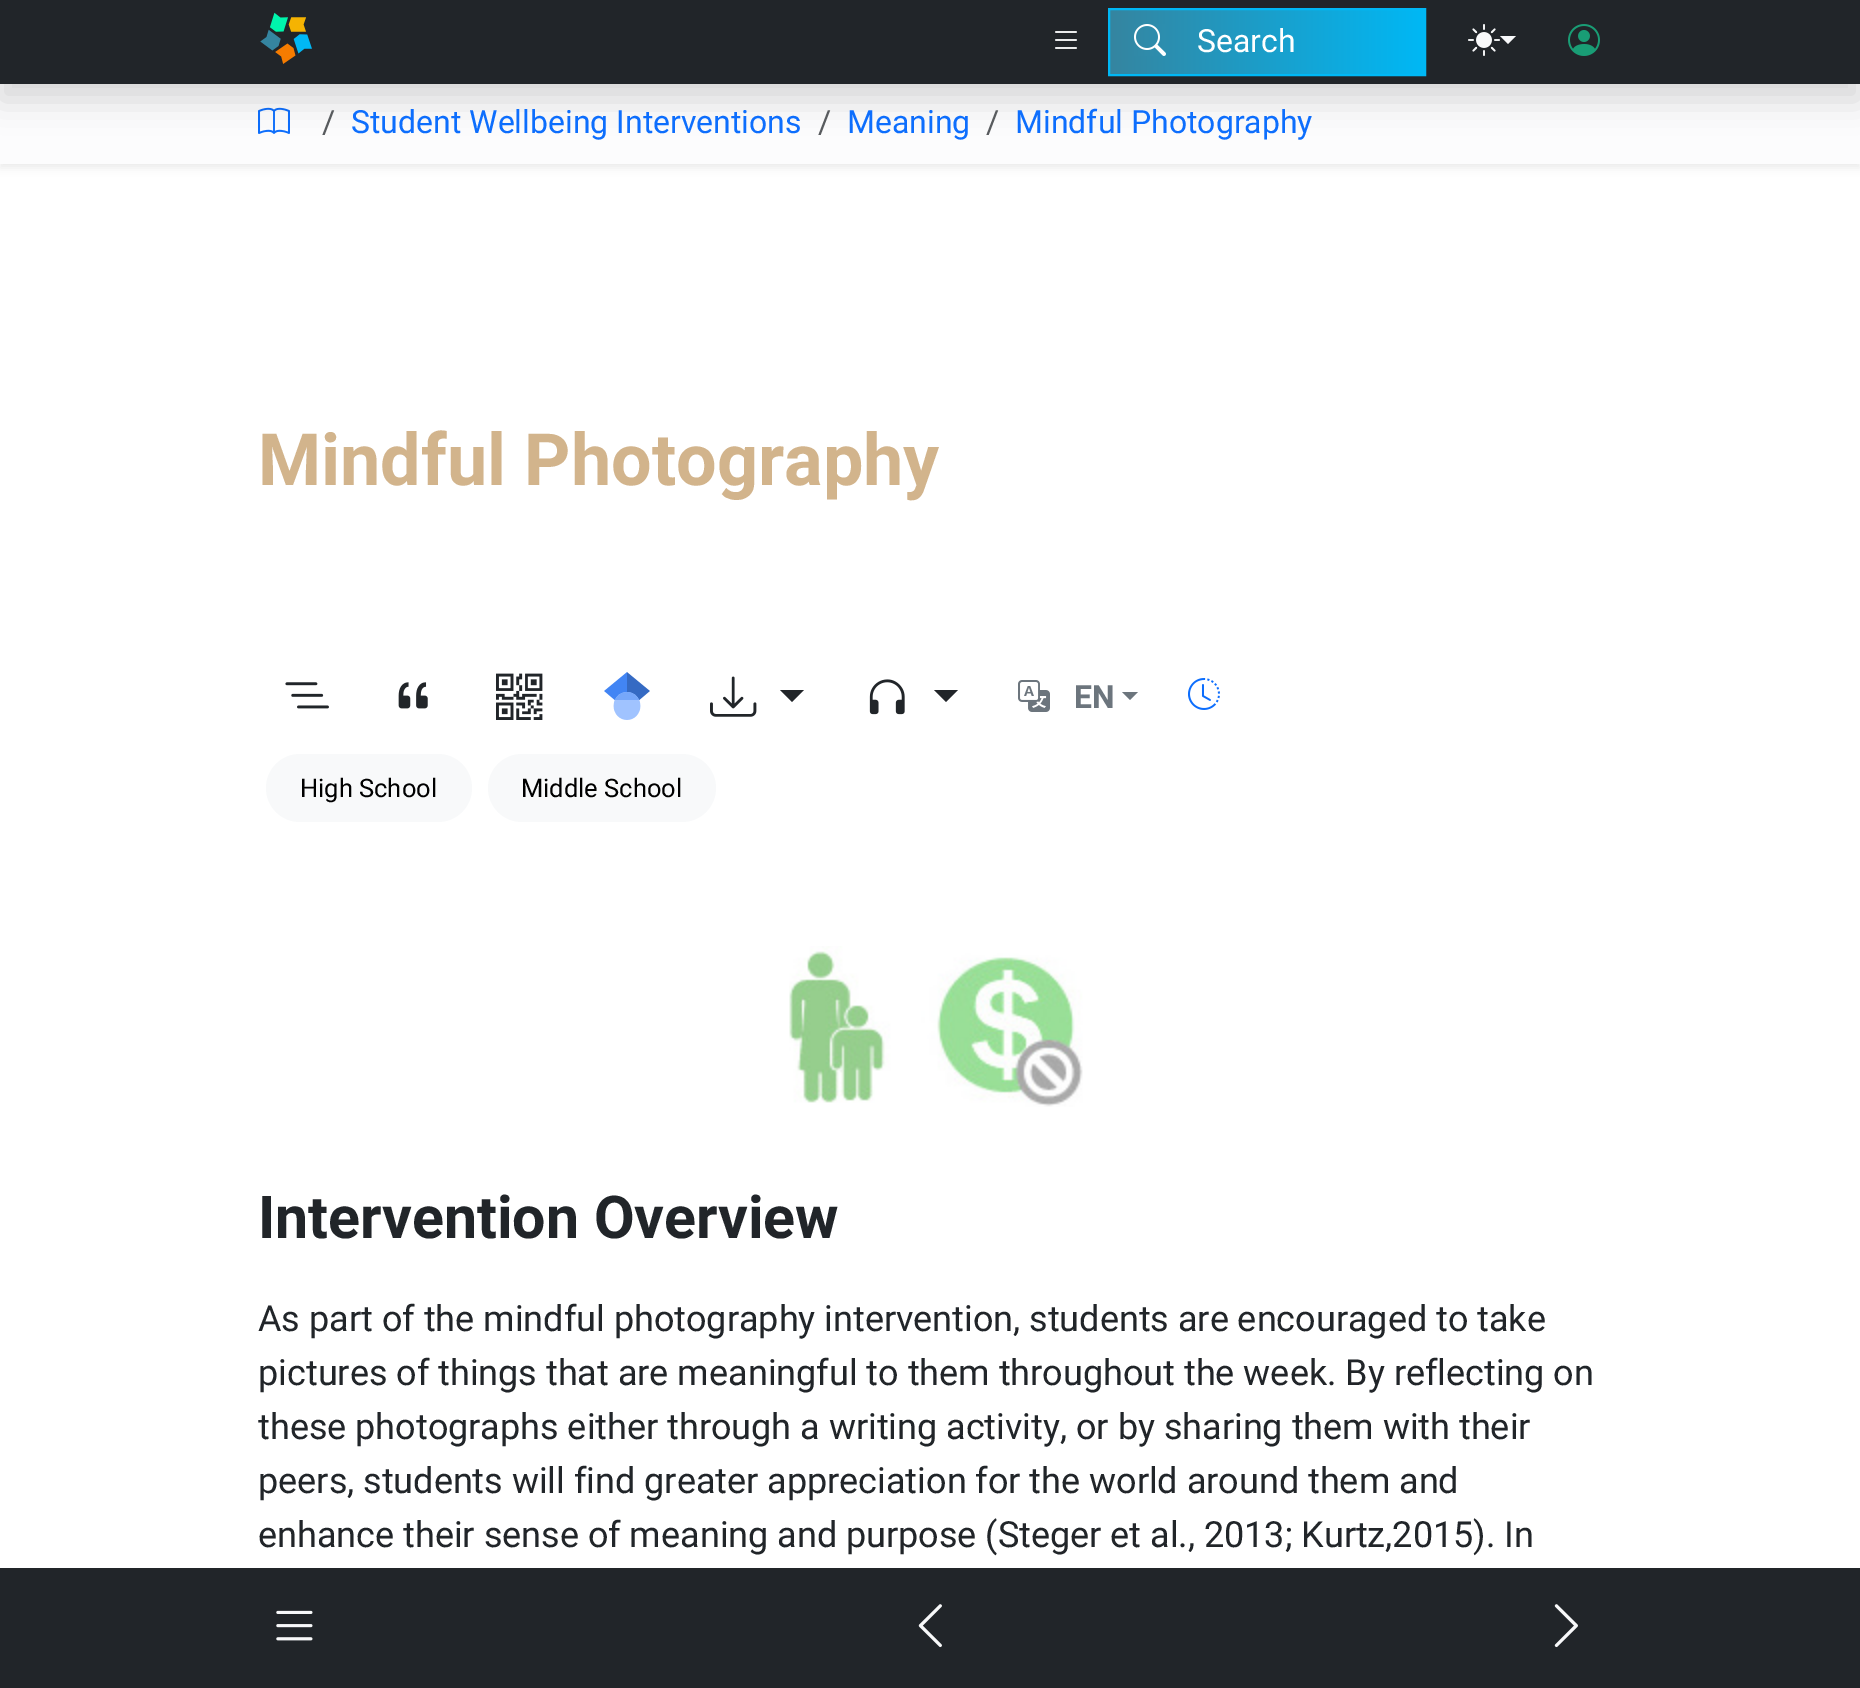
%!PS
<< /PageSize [1860 1688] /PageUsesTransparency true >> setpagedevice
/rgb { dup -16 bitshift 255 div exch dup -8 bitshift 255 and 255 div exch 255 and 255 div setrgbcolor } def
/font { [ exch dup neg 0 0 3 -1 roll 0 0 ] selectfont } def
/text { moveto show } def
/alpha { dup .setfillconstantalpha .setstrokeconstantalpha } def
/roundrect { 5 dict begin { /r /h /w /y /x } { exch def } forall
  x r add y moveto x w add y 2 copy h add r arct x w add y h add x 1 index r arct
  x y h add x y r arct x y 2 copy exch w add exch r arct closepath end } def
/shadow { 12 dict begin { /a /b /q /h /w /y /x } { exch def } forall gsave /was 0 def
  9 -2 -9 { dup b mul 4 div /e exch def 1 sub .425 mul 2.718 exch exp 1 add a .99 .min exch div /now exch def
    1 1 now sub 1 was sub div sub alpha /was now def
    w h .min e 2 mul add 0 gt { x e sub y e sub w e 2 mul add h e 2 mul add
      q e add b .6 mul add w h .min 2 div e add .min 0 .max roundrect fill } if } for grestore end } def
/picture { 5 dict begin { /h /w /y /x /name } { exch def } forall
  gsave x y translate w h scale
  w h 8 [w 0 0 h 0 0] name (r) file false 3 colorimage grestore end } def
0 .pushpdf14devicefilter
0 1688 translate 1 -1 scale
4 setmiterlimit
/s1 { /Roboto-Regular 32 font 16#FFFFFF rgb } def
/s2 { /Roboto-Regular 32 font 16#585B5E rgb } def
/s3 { /Roboto-Regular 32 font 16#0D6EFD rgb } def
/s4 { /Roboto-Bold 72 font 16#D2B48C rgb } def
/s5 { /Roboto-Bold 32 font 16#6C757D rgb } def
/s6 { /Roboto-Regular 25.5 font 16#000000 rgb } def
/s7 { /Roboto-Bold 59.1 font 16#212529 rgb } def
/s8 { /Roboto-Regular 36 font 16#212529 rgb } def
16#FFFFFF rgb
0 0 1860 1688 rectfill
16#000000 rgb
0 88 1860 80 0 4 0.07 shadow
16#FCFCFD rgb
0 85 1860 79 rectfill
(pic6.raw) 258 107 32 27 picture
16#000000 rgb
0 16 1860 84 0 16 0.15 shadow
16#212529 rgb
0 0 1860 84 rectfill
(pic1.raw) 260 12 52 52 picture
(pic2.raw) 1055 31 22 18 picture
gsave 1110 10 moveto 1424 10 lineto 1424 74 lineto 1110 74 lineto closepath clip newpath
<< /ShadingType 2 /ColorSpace /DeviceRGB /Coords [1110 42 1424 42] /Extend [true true] /Function << /FunctionType 2 /Domain [0 1] /C0 [0.208 0.522 0.627] /C1 [0 0.722 0.961] /N 1 >> >> shfill grestore
16#00B8F5 rgb
2 setlinewidth
1109 9 316 66 rectstroke
(pic3.raw) 1134 24 32 32 picture
s1
(Search) 1197 52 text
(pic4.raw) 1468 24 32 32 picture
16#F8F9FA rgb
1500 36 moveto 1516 36 lineto 1508 44 lineto closepath fill
(pic5.raw) 1568 24 32 32 picture
s2
(/) 322 133 text
s3
(Student Wellbeing Interventions) 351 133 text
s2
(/) 818 133 text
s3
(Meaning) 847 133 text
s2
(/) 986 133 text
s3
(Mindful Photography) 1015 133 text
s4
(Mindful Photography) 258 485 text
(pic7.raw) 285 682 44 27 picture
(pic8.raw) 398 682 30 27 picture
(pic9.raw) 496 673 47 47 picture
(pic10.raw) 604 672 46 48 picture
(pic11.raw) 710 676 47 41 picture
16#212529 rgb
780 690 moveto 804 690 lineto 792 702 lineto closepath fill
(pic12.raw) 869 679 36 36 picture
934 690 moveto 958 690 lineto 946 702 lineto closepath fill
(pic13.raw) 1018 680 32 32 picture
s5
(EN) 1074 708 text
1122 692 moveto 1138 692 lineto 1130 700 lineto closepath fill
(pic14.raw) 1188 678 32 32 picture
16#F8F9FA rgb
266 754 206 68 34 roundrect fill
s6
(High School) 300 797 text
16#F8F9FA rgb
488 754 228 68 34 roundrect fill
s6
(Middle School) 521 797 text
(pic15.raw) 789 946 294 161 picture
s7
(Intervention Overview) 258 1238 text
s8
(As part of the mindful photography intervention, students are encouraged to take) 258 1331 text
(pictures of things that are meaningful to them throughout the week. By reflecting on) 258 1385 text
(these photographs either through a writing activity, or by sharing them with their) 258 1439 text
(peers, students will find greater appreciation for the world around them and) 258 1493 text
(enhance their sense of meaning and purpose \(Steger et al., 2013; Kurtz,2015\). In) 258 1547 text
0 1568 1860 120 rectfill
(pic16.raw) 276 1610 37 31 picture
(pic17.raw) 918 1604 24 44 picture
(pic18.raw) 1554 1604 24 44 picture
.poppdf14devicefilter showpage
